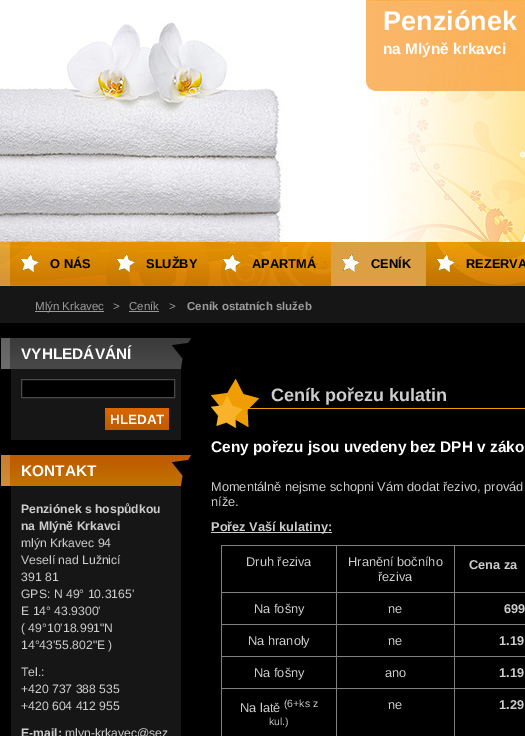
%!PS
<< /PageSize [525 736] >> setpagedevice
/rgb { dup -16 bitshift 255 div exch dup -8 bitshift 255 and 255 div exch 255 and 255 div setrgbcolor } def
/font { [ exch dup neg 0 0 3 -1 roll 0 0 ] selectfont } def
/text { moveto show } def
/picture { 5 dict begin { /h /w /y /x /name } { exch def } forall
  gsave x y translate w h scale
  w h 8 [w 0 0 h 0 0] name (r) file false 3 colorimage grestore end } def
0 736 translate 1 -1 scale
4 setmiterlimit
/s1 { /LiberationSans-Bold 27 font 16#FFFFFF rgb } def
/s2 { /LiberationSans-Bold 15.4 font 16#FFFFFF rgb } def
/s3 { /LiberationSans-Bold 12.8 font 16#000000 rgb } def
/s4 { /LiberationSans-Regular 11.5 font 16#9B9B9B rgb } def
/s5 { /LiberationSans-Bold 11.5 font 16#9B9B9B rgb } def
/s6 { /LiberationSans-Bold 13.5 font 16#FFFFFF rgb } def
/s7 { /LiberationSans-Bold 12.2 font 16#CDCDCD rgb } def
/s8 { /LiberationSans-Regular 12.2 font 16#CDCDCD rgb } def
/s9 { /LiberationSans-Bold 18 font 16#CDCDCD rgb } def
/s10 { /LiberationSans-Regular 12.8 font 16#CDCDCD rgb } def
/s11 { /LiberationSans-Bold 12.8 font 16#CDCDCD rgb } def
/s12 { /LiberationSans-Regular 10.5 font 16#CDCDCD rgb } def
16#000000 rgb
0 0 525 736 rectfill
(pic1.raw) 0 0 525 242 picture
s1
(Penziónek) 383 30 text
s2
(na Mlýně krkavci) 383 54 text
(pic2.raw) 0 242 525 44 picture
(pic3.raw) 21 254 18 18 picture
s3
(O NÁS) 50 268 text
(pic4.raw) 117 254 18 18 picture
(SLUŽBY) 146 268 text
(pic5.raw) 223 254 18 18 picture
(APARTMÁ) 252 268 text
16#DD9F43 rgb
331 242 95 44 rectfill
(pic6.raw) 342 254 18 18 picture
s3
(CENÍK) 371 268 text
(pic7.raw) 437 254 18 18 picture
(REZERVA) 466 268 text
16#161616 rgb
0 286 525 37 rectfill
16#9B9B9B rgb
35 311 69 1 rectfill
s4
(Mlýn Krkavec) 35 310 text
(>) 113 310 text
(Ceník) 129 310 text
129 311 30 1 rectfill
(>) 169 310 text
s5
(Ceník ostatních služeb) 187 310 text
(pic8.raw) 1 338 190 31 picture
s2
(VYHLEDÁVÁNÍ) 21 359 text
16#161616 rgb
11 369 170 71 rectfill
16#000000 rgb
21.5 379.5 moveto 174.5 379.5 lineto 174.5 397.5 lineto 21.5 397.5 lineto closepath gsave fill grestore
16#484848 rgb
stroke
(pic9.raw) 105 408 64 22 picture
s6
(HLEDAT) 110 424 text
(pic10.raw) 1 455 190 31 picture
s2
(KONTAKT) 21 476 text
16#161616 rgb
11 486 170 250 rectfill
s7
(Penziónek s hospůdkou) 21 513 text
(na Mlýně Krkavci) 21 530 text
s8
(mlýn Krkavec 94) 21 547 text
(Veselí nad Lužnicí) 21 564 text
(391 81) 21 581 text
(GPS: N 49° 10.3165') 21 598 text
(E 14° 43.9300') 21 615 text
(\( 49°10'18.991"N) 21 632 text
(14°43'55.802"E \)) 21 649 text
(Tel.:) 21 676 text
(+420 737 388 535) 21 693 text
(+420 604 412 955) 21 710 text
s7
(E-mail:) 21 737 text
s8
(mlyn-krkavec@sez) 65 737 text
(pic11.raw) 211 379 314 49 picture
s9
(Ceník pořezu kulatin) 271 401 text
s2
(Ceny pořezu jsou uvedeny bez DPH v záko) 211 452 text
s10
(Momentálně nejsme schopni Vám dodat řezivo, provád) 211 491 text
(níže.) 211 506 text
211 532 121 1 rectfill
s11
(Pořez Vaší kulatiny:) 211 531 text
16#808080 rgb
221 545 304 1 rectfill
221 545 1 191 rectfill
s10
(Druh řeziva) 246 566 text
16#808080 rgb
454 592 71 1 rectfill
454 624 71 1 rectfill
454 656 71 1 rectfill
454 688 71 1 rectfill
454 688 1 48 rectfill
336 688 119 1 rectfill
454 656 1 33 rectfill
336 656 119 1 rectfill
454 624 1 33 rectfill
336 624 119 1 rectfill
454 592 1 33 rectfill
336 592 119 1 rectfill
336 688 1 48 rectfill
221 688 116 1 rectfill
336 656 1 33 rectfill
221 656 116 1 rectfill
336 624 1 33 rectfill
221 624 116 1 rectfill
336 592 1 33 rectfill
221 592 116 1 rectfill
336 545 1 48 rectfill
s10
(Hranění bočního) 348 566 text
(řeziva) 378 581 text
16#808080 rgb
454 545 1 48 rectfill
s11
(Cena za) 469 569 text
s10
(Na fošny) 254 613 text
(ne) 388 613 text
s11
(699) 504 613 text
s10
(Na hranoly) 248 645 text
(ne) 388 645 text
s11
(1.19) 499 645 text
s10
(Na fošny) 254 677 text
(ano) 385 677 text
s11
(1.19) 499 677 text
s10
(Na latě) 240 712 text
s12
(\(6+ks z) 284 707 text
(kul.\)) 269 725 text
s10
(ne) 388 709 text
s11
(1.29) 499 709 text
showpage
